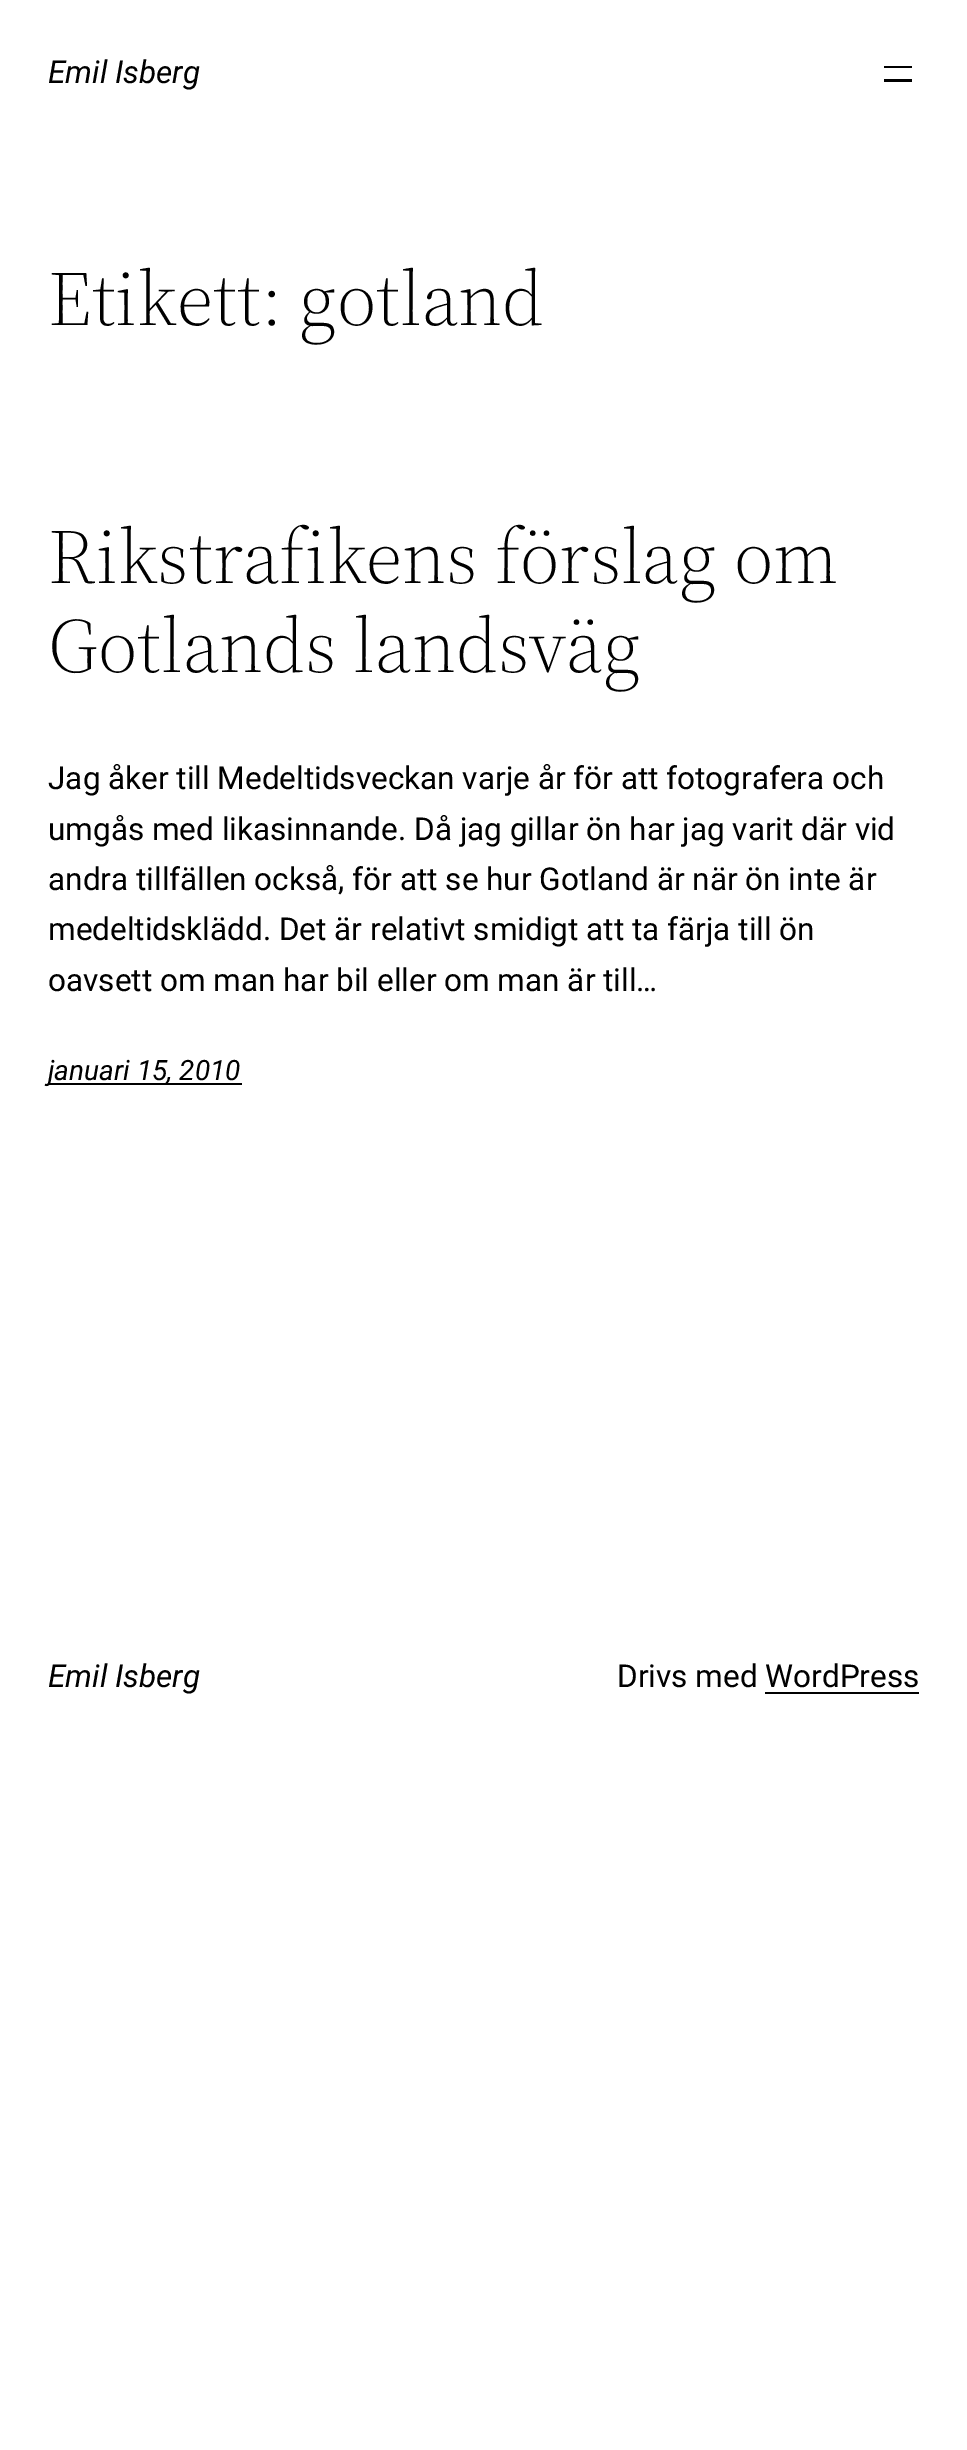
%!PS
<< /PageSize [967 2450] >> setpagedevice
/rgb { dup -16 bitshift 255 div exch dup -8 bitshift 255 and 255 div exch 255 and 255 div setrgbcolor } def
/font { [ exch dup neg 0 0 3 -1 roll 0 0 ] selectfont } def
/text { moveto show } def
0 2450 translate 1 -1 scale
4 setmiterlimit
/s1 { /Roboto-Italic 31.5 font 16#000000 rgb } def
/s2 { /SourceSerif4-Light 77 font 16#000000 rgb } def
/s3 { /Roboto-Regular 31.5 font 16#000000 rgb } def
/s4 { /Roboto-Italic 28 font 16#000000 rgb } def
16#FFFFFF rgb
0 0 967 2450 rectfill
s1
(Emil Isberg) 48 83 text
884 66 28 2 rectfill
884 79 28 3 rectfill
s2
(Etikett: gotland) 48 325 text
(Rikstrafikens förslag om) 48 583 text
(Gotlands landsväg) 48 672 text
s3
(Jag åker till Medeltidsveckan varje år för att fotografera och) 48 789 text
(umgås med likasinnande. Då jag gillar ön har jag varit där vid) 48 840 text
(andra tillfällen också, för att se hur Gotland är när ön inte är) 48 890 text
(medeltidsklädd. Det är relativt smidigt att ta färja till ön) 48 940 text
(oavsett om man har bil eller om man är till…) 48 991 text
49 1083 193 2 rectfill
s4
(januari 15, 2010) 48 1080 text
s1
(Emil Isberg) 48 1687 text
s3
(Drivs med WordPress) 617 1687 text
765 1692 154 2 rectfill
showpage
